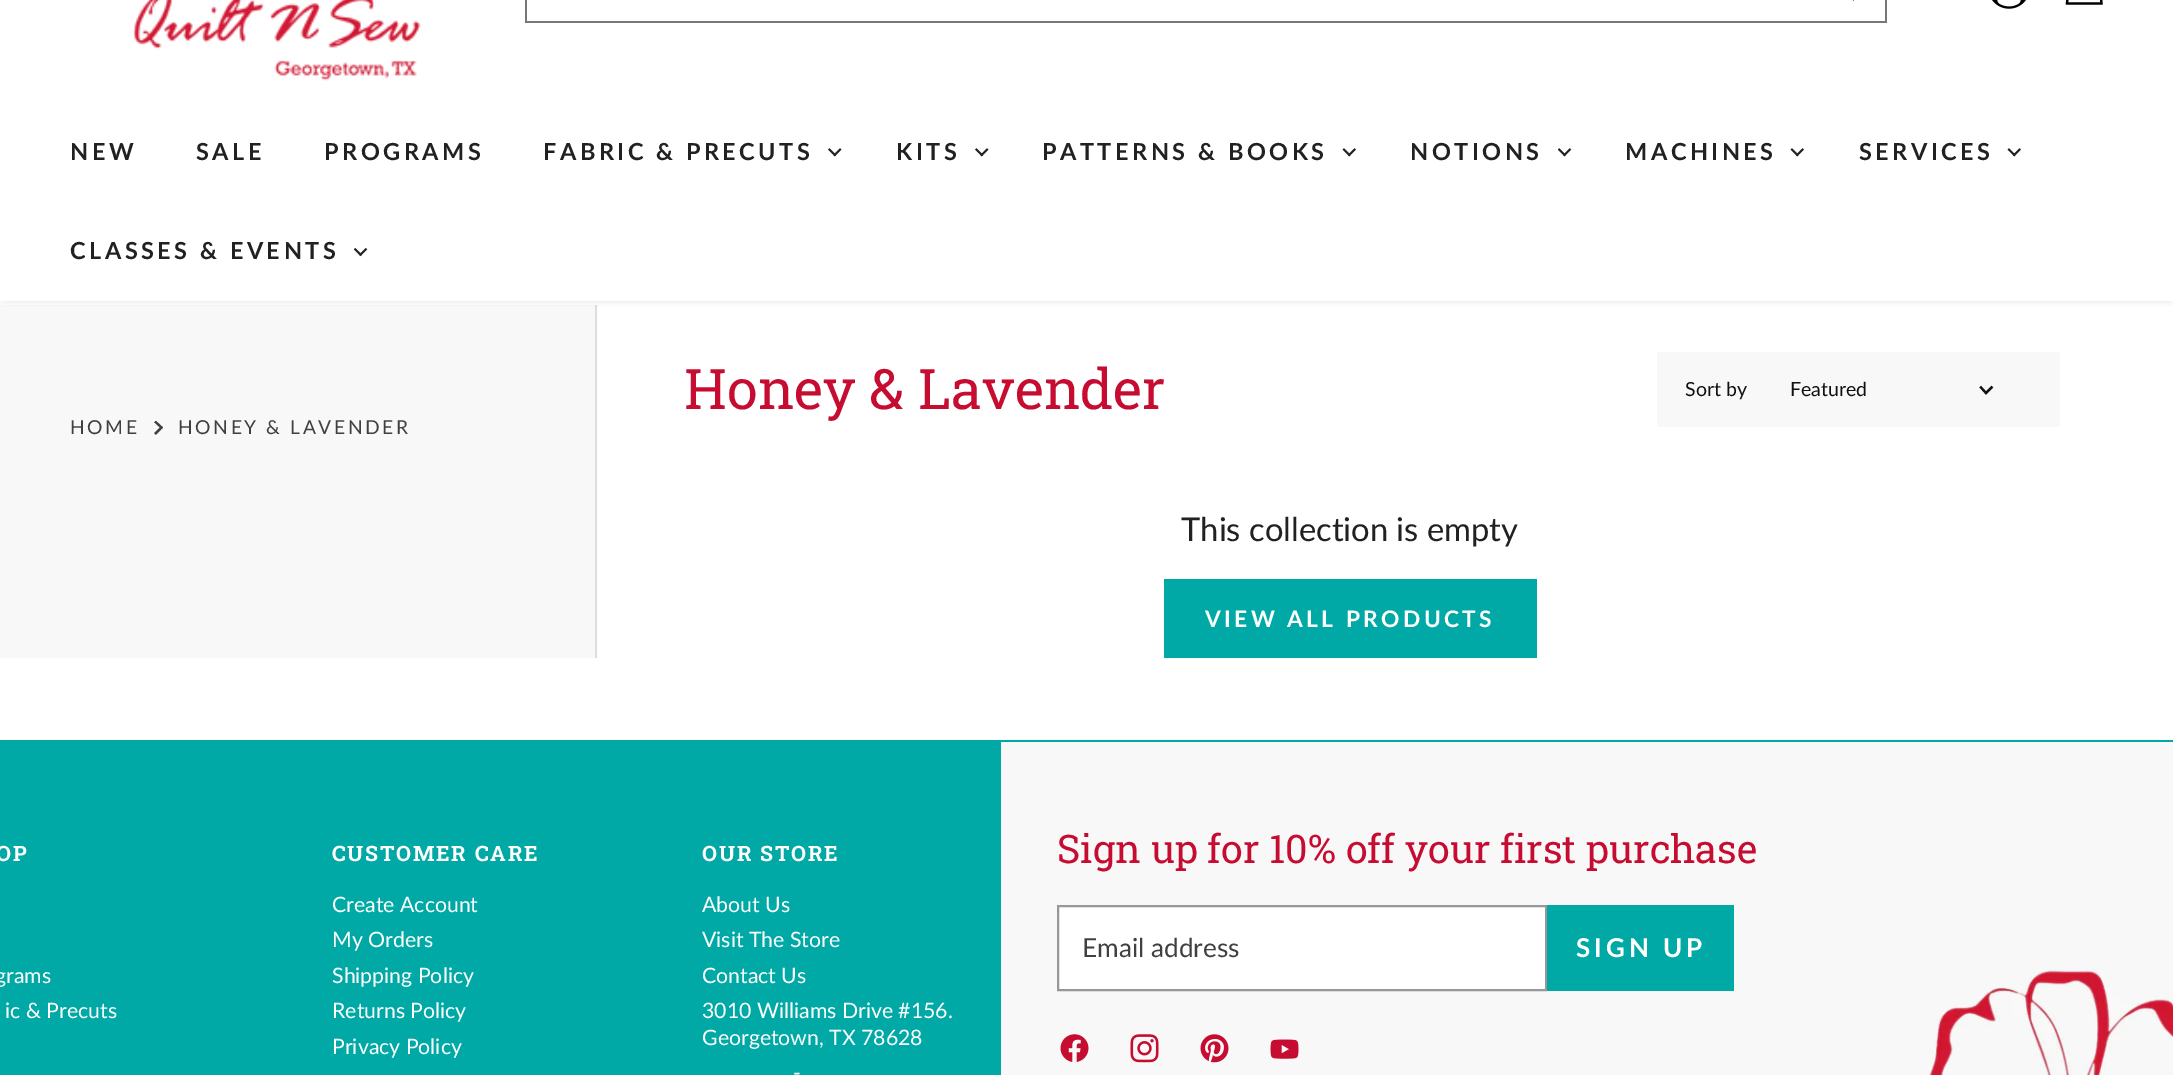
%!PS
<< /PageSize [2173 1075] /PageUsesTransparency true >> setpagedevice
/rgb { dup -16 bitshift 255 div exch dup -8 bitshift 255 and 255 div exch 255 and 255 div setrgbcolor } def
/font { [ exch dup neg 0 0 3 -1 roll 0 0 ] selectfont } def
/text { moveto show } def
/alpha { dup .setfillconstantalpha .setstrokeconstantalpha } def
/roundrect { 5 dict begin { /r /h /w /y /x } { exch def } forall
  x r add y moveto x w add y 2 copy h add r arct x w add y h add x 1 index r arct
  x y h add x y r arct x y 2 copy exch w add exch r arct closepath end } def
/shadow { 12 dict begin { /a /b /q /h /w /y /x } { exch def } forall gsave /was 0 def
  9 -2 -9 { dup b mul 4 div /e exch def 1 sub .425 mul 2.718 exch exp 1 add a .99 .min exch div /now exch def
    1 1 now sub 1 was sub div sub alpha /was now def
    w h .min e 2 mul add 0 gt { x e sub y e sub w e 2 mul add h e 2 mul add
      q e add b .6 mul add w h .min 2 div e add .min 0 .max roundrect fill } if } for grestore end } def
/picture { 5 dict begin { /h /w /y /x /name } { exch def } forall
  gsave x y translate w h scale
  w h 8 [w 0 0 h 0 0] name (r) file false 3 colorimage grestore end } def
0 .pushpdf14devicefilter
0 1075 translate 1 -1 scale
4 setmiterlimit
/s1 { /RobotoSlab-Regular 55.75 font 16#C60C30 rgb } def
/s2 { /Lato-Regular 19.5 font 16#111111 rgb } def
/s3 { /Lato-Regular 32.75 font 16#212121 rgb } def
/s4 { /Lato-Regular 21.25 font 16#FFFFFF rgb } def
/s5 { /RobotoSlab-Regular 39.4 font 16#C60C30 rgb } def
/s6 { /Lato-Regular 26.25 font 16#404040 rgb } def
16#FFFFFF rgb
0 0 2173 1075 rectfill
16#F8F8F8 rgb
0 305 595 353 rectfill
16#DDDDDD rgb
595 305 2 353 rectfill
gsave
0 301 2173 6 rectclip
16#ABABAB rgb
4 105 2166 193 0 4.5 0.78 shadow
grestore
16#FFFFFF rgb
1 97 2172 5 rectfill
(pic1.raw) 133 0 288 81 picture
16#777777 rgb
1885 0 2 23 rectfill
525 21 1362 2 rectfill
16#000000 rgb
2.9 setlinewidth
1854.5 -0.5 moveto 1844.5 -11.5 lineto stroke
16#777777 rgb
525 0 2 23 rectfill
(pic2.raw) 1992 0 34 9 picture
16#000000 rgb
2.2 setlinewidth
2101.5 3.5 moveto 2067 3.5 lineto 2069.5 -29.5 lineto 2098.5 -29.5 lineto closepath stroke
/Lato-Bold 23.5 font
16#212121 rgb
70 160 moveto 3.5 0 (NEW) ashow
196 160 moveto 3.5 0 (SALE) ashow
324 160 moveto 3.5 0 (PROGRAMS) ashow
543 160 moveto 3.5 0 (FABRIC & PRECUTS) ashow
(pic3.raw) 828 148 14 9 picture
896 160 moveto 3.5 0 (KITS) ashow
(pic3.raw) 975 148 14 9 picture
1042 160 moveto 3.5 0 (PATTERNS & BOOKS) ashow
(pic4.raw) 1342 148 14 9 picture
1410 160 moveto 3.5 0 (NOTIONS) ashow
(pic5.raw) 1558 148 14 9 picture
1625 160 moveto 3.5 0 (MACHINES) ashow
(pic4.raw) 1790 148 14 9 picture
1859 160 moveto 3.5 0 (SERVICES) ashow
(pic4.raw) 2007 148 14 9 picture
70 259 moveto 3.5 0 (CLASSES & EVENTS) ashow
(pic6.raw) 354 247 14 10 picture
/Lato-Regular 19.25 font
16#404040 rgb
70 434 moveto 2.6 0 (HOME) ashow
gsave
154.5 435 moveto 154.5 421 lineto 163 421 lineto 163 435 lineto closepath clip newpath
155 434 moveto 161.5 427.5 lineto 155 421.5 lineto stroke
grestore
178 434 moveto 2.6 0 (HONEY & LAVENDER) ashow
s1
(Honey & Lavender) 684 409 text
16#F8F8F8 rgb
1657 352 403 75 rectfill
s2
(Sort by) 1685 396 text
(Featured) 1790 396 text
2 setlinecap
1986 393 moveto 1991.5 387.5 lineto 1986 393 moveto 1981 387.5 lineto stroke
s3
(This collection is empty) 1181 541 text
16#00A9A5 rgb
1164 579 373 79 rectfill
/Lato-Bold 22.75 font
16#FFFFFF rgb
1205 627 moveto 3.4 0 (VIEW ALL PRODUCTS) ashow
16#00A9A5 rgb
0 740 2173 2 rectfill
0 742 1001 333 rectfill
/RobotoSlab-Bold 21.25 font
16#FFFFFF rgb
-4 861 moveto 1.75 0 (OP) ashow
s4
(grams) -5 983 text
(ic & Precuts) 5 1018 text
/RobotoSlab-Bold 21.25 font
332 861 moveto 1.75 0 (CUSTOMER CARE) ashow
s4
(Create Account) 332 912 text
(My Orders) 332 947 text
(Shipping Policy) 332 983 text
(Returns Policy) 332 1018 text
(Privacy Policy) 332 1054 text
/RobotoSlab-Bold 21.25 font
702 861 moveto 1.75 0 (OUR STORE) ashow
s4
(About Us) 702 912 text
(Visit The Store) 702 947 text
(Contact Us) 702 983 text
(3010 Williams Drive #156.) 702 1018 text
(Georgetown, TX 78628) 702 1045 text
(-) 793 1080 text
16#F8F8F8 rgb
1001 742 1172 333 rectfill
(pic7.raw) 1929 965 244 110 picture
s5
(Sign up for 10% off your first purchase) 1057 863 text
16#FFFFFF rgb
1058 906 moveto 1546 906 lineto 1546 990 lineto 1058 990 lineto closepath gsave fill grestore
16#979797 rgb
2 setlinewidth
0 setlinecap
stroke
s6
(Email address) 1082 957 text
16#00A9A5 rgb
1547 905 187 86 rectfill
/Lato-Bold 26 font
16#FFFFFF rgb
1576 957 moveto 4 0 (SIGN UP) ashow
(pic8.raw) 1060 1034 29 28 picture
(pic9.raw) 1130 1034 29 29 picture
(pic10.raw) 1200 1034 29 29 picture
(pic11.raw) 1270 1039 29 20 picture
.poppdf14devicefilter showpage
